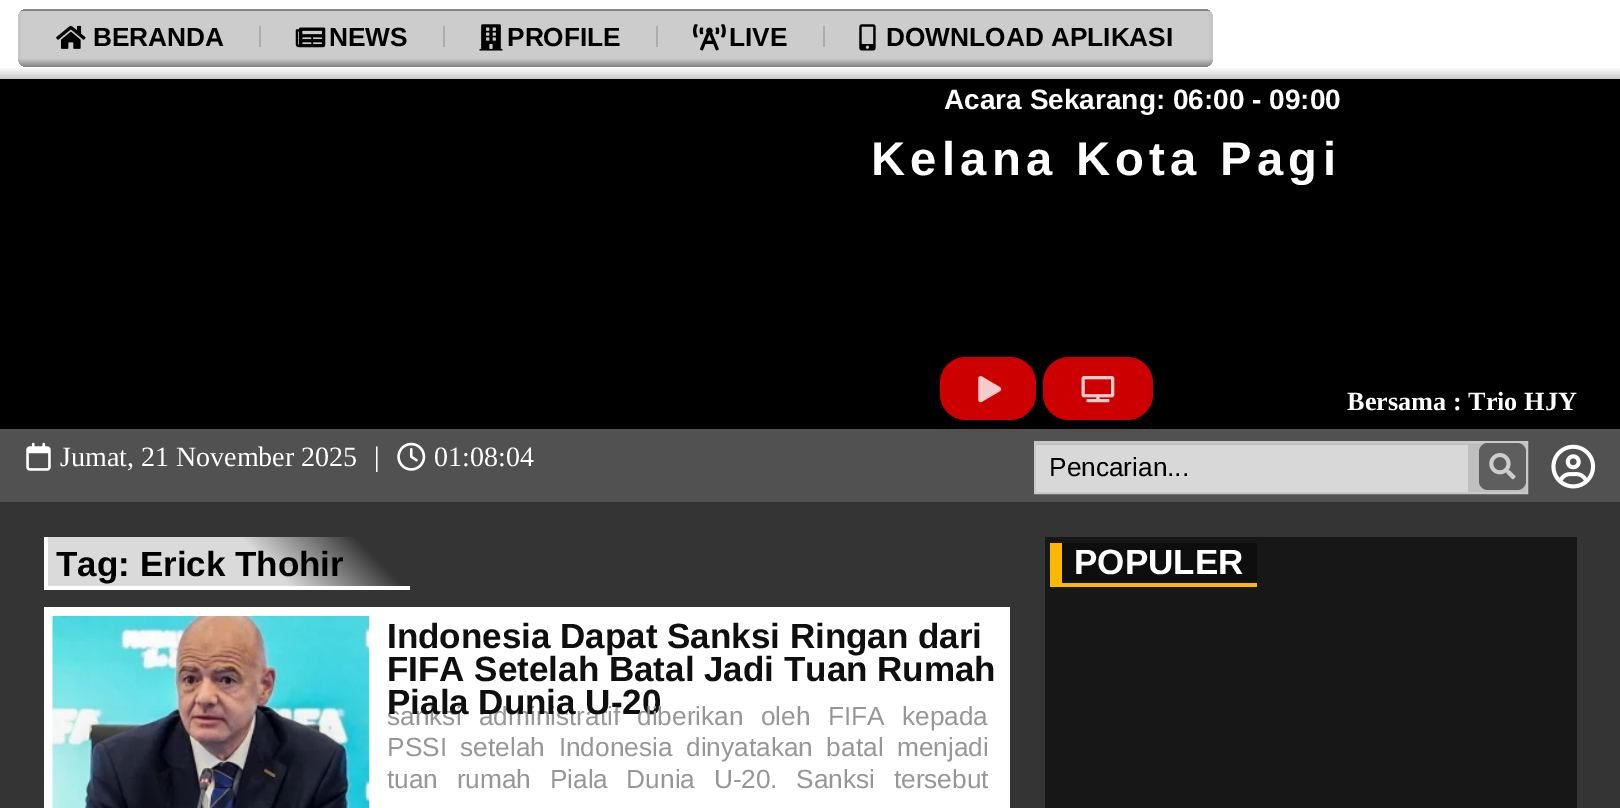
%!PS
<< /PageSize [1620 808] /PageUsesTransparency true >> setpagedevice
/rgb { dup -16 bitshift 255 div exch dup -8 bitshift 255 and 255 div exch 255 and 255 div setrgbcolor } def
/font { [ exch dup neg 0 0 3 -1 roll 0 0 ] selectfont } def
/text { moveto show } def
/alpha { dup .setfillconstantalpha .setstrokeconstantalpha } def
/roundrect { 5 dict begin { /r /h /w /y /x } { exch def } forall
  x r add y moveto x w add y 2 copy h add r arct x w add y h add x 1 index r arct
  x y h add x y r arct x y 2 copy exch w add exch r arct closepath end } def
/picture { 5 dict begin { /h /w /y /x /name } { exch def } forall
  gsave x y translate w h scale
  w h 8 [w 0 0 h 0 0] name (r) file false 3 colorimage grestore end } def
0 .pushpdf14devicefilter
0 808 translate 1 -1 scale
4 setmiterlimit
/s1 { /LiberationSans-Bold 26.25 font 16#000000 rgb } def
/s2 { /LiberationSans-Bold 28 font 16#FFFFFF rgb } def
/s3 { /LiberationSerif-Bold 26.25 font 16#FFFFFF rgb } def
/s4 { /LiberationSerif-Regular 28 font 16#FFFFFF rgb } def
/s5 { /LiberationSans-Regular 26.25 font 16#000000 rgb } def
/s6 { /LiberationSans-Bold 35 font 16#000000 rgb } def
/s7 { /LiberationSans-Bold 35 font 16#0F0F0F rgb } def
/s8 { /LiberationSans-Bold 35 font 16#FFFFFF rgb } def
16#FFFFFF rgb
0 0 1620 808 rectfill
16#000000 rgb
0 79 1620 350 rectfill
gsave 0 68 moveto 1620 68 lineto 1620 79 lineto 0 79 lineto closepath clip newpath
<< /ShadingType 2 /ColorSpace /DeviceRGB /Coords [810 0 810 79] /Extend [true true] /Function << /FunctionType 3 /Domain [0 1] /Functions [<< /FunctionType 2 /Domain [0 1] /C0 [1 1 1] /C1 [1 1 1] /N 1 >> << /FunctionType 2 /Domain [0 1] /C0 [1 1 1] /C1 [0.78 0.78 0.78] /N 1 >>] /Bounds [0.85] /Encode [0 1 0 1] >> >> shfill grestore
gsave
18 9 1195 58 9 roundrect clip newpath
gsave 18 9 moveto 1213 9 lineto 1213 11 lineto 18 11 lineto closepath clip newpath
<< /ShadingType 2 /ColorSpace /DeviceRGB /Coords [615 -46 615 11] /Extend [true true] /Function << /FunctionType 3 /Domain [0 1] /Functions [<< /FunctionType 2 /Domain [0 1] /C0 [0.8 0.8 0.8] /C1 [0.8 0.8 0.8] /N 1 >> << /FunctionType 2 /Domain [0 1] /C0 [0.8 0.8 0.8] /C1 [0.51 0.51 0.51] /N 1 >>] /Bounds [0.85] /Encode [0 1 0 1] >> >> shfill grestore
gsave 18 11 moveto 1213 11 lineto 1213 58 lineto 1213 63 1209 67 1204 67 curveto 27 67 lineto 22 67 18 63 18 58 curveto closepath clip newpath
<< /ShadingType 2 /ColorSpace /DeviceRGB /Coords [615 10 615 67] /Extend [true true] /Function << /FunctionType 3 /Domain [0 1] /Functions [<< /FunctionType 2 /Domain [0 1] /C0 [0.8 0.8 0.8] /C1 [0.8 0.8 0.8] /N 1 >> << /FunctionType 2 /Domain [0 1] /C0 [0.8 0.8 0.8] /C1 [0.51 0.51 0.51] /N 1 >>] /Bounds [0.85] /Encode [0 1 0 1] >> >> shfill grestore
grestore
0.06 alpha
16#6D6D6D rgb
26 9 moveto 1204 9 lineto 1209 9 1213 13 1213 18 curveto 1213 58 lineto 1213 63 1209 66 1204 66 curveto 26 66 lineto 21 66 18 63 18 58 curveto 18 18 lineto 18 13 21 9 26 9 curveto closepath 26 10 moveto 1204 10 lineto 1207 10 1209 14 1209 18 curveto 1209 58 lineto 1209 63 1207 66 1204 66 curveto 26 66 lineto 23 66 21 63 21 58 curveto 21 18 lineto 21 14 23 10 26 10 curveto closepath eofill
1 alpha
(pic1.raw) 56 25 30 24 picture
s1
(BERANDA) 93 46 text
16#ADADAD rgb
259 26 2 21 rectfill
(pic2.raw) 295 27 31 21 picture
s1
(NEWS) 329 46 text
16#ADADAD rgb
443 26 2 21 rectfill
(pic3.raw) 479 24 24 27 picture
s1
(PROFILE) 507 46 text
16#ADADAD rgb
656 26 2 21 rectfill
(pic4.raw) 693 24 33 27 picture
s1
(LIVE) 729 46 text
16#ADADAD rgb
823 26 2 21 rectfill
(pic5.raw) 859 24 17 27 picture
s1
(DOWNLOAD APLIKASI) 886 46 text
s2
(Acara Sekarang: 06:00 - 09:00) 944 109 text
/LiberationSans-Bold 47.25 font
871 175 moveto 5.25 0 (Kelana Kota Pagi) ashow
s3
(Bersama : Trio HJY) 1347 410 text
16#CC0000 rgb
940 357 96 63 26 roundrect fill
(pic6.raw) 978 376 24 27 picture
1043 357 110 63 26 roundrect fill
(pic7.raw) 1081 376 34 27 picture
16#515151 rgb
0 429 1620 73 rectfill
(pic8.raw) 26 442 25 29 picture
s4
(Jumat, 21 November 2025) 60 466 text
(|) 374 466 text
(pic9.raw) 397 442 29 29 picture
(01:08:04) 434 466 text
16#BFBFBF rgb
1035 442 moveto 1527 442 lineto 1527 493 lineto 1035 493 lineto closepath gsave fill grestore
16#C9C9C9 rgb
2 setlinewidth
stroke
16#D8D8D8 rgb
1036 445 432 47 rectfill
s5
(Pencarian...) 1049 476 text
16#5E5E5E rgb
1479 443 47 47 9 roundrect fill
(pic10.raw) 1489 453 27 27 picture
(pic11.raw) 1551 444 45 45 picture
gsave 0 502 moveto 1620 502 lineto 1620 808 lineto 0 808 lineto closepath clip newpath
<< /ShadingType 2 /ColorSpace /DeviceRGB /Coords [810 502 810 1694] /Extend [true true] /Function << /FunctionType 3 /Domain [0 1] /Functions [<< /FunctionType 2 /Domain [0 1] /C0 [0.204 0.204 0.204] /C1 [0.204 0.204 0.204] /N 1 >> << /FunctionType 2 /Domain [0 1] /C0 [0.204 0.204 0.204] /C1 [1 1 1] /N 1 >> << /FunctionType 2 /Domain [0 1] /C0 [1 1 1] /C1 [1 1 1] /N 1 >>] /Bounds [0.7 0.9] /Encode [0 1 0 1 0 1] >> >> shfill grestore
gsave 48 537 moveto 403 537 lineto 403 586 lineto 48 586 lineto closepath clip newpath
<< /ShadingType 2 /ColorSpace /DeviceRGB /Coords [126 665 331 459] /Extend [true true] /Function << /FunctionType 3 /Domain [0 1] /Functions [<< /FunctionType 2 /Domain [0 1] /C0 [0.855 0.855 0.855] /C1 [0.855 0.855 0.855] /N 1 >> << /FunctionType 2 /Domain [0 1] /C0 [0.855 0.855 0.855] /C1 [0.204 0.204 0.204] /N 1 >> << /FunctionType 2 /Domain [0 1] /C0 [0.204 0.204 0.204] /C1 [0.204 0.204 0.204] /N 1 >>] /Bounds [0.59 0.87] /Encode [0 1 0 1 0 1] >> >> shfill grestore
16#FFFFFF rgb
44 586 366 4 rectfill
44 537 4 53 rectfill
s6
(Tag: Erick Thohir) 56 576 text
16#FFFFFF rgb
44 607 966 201 rectfill
(pic12.raw) 52 616 318 192 picture
s7
(Indonesia Dapat Sanksi Ringan dari) 387 648 text
(FIFA Setelah Batal Jadi Tuan Rumah) 387 681 text
/LiberationSans-Regular 26.25 font
16#969696 rgb
387 725 moveto 10 0 32 (sanksi administratif) widthshow
s7
(Piala Dunia U-20) 387 714 text
/LiberationSans-Regular 26.25 font
16#969696 rgb
637 725 moveto 10 0 32 (diberikan oleh FIFA kepada) widthshow
387 756 moveto 6.25 0 32 (PSSI setelah Indonesia dinyatakan batal menjadi) widthshow
387 788 moveto 11.25 0 32 (tuan rumah Piala Dunia U-20. Sanksi tersebut) widthshow
16#171717 rgb
1045 537 532 271 rectfill
16#0E0E0E rgb
1062 543 195 40 rectfill
16#FDB900 rgb
1050 583 207 4 rectfill
1050 543 12 40 rectfill
s8
(POPULER) 1074 574 text
.poppdf14devicefilter showpage
